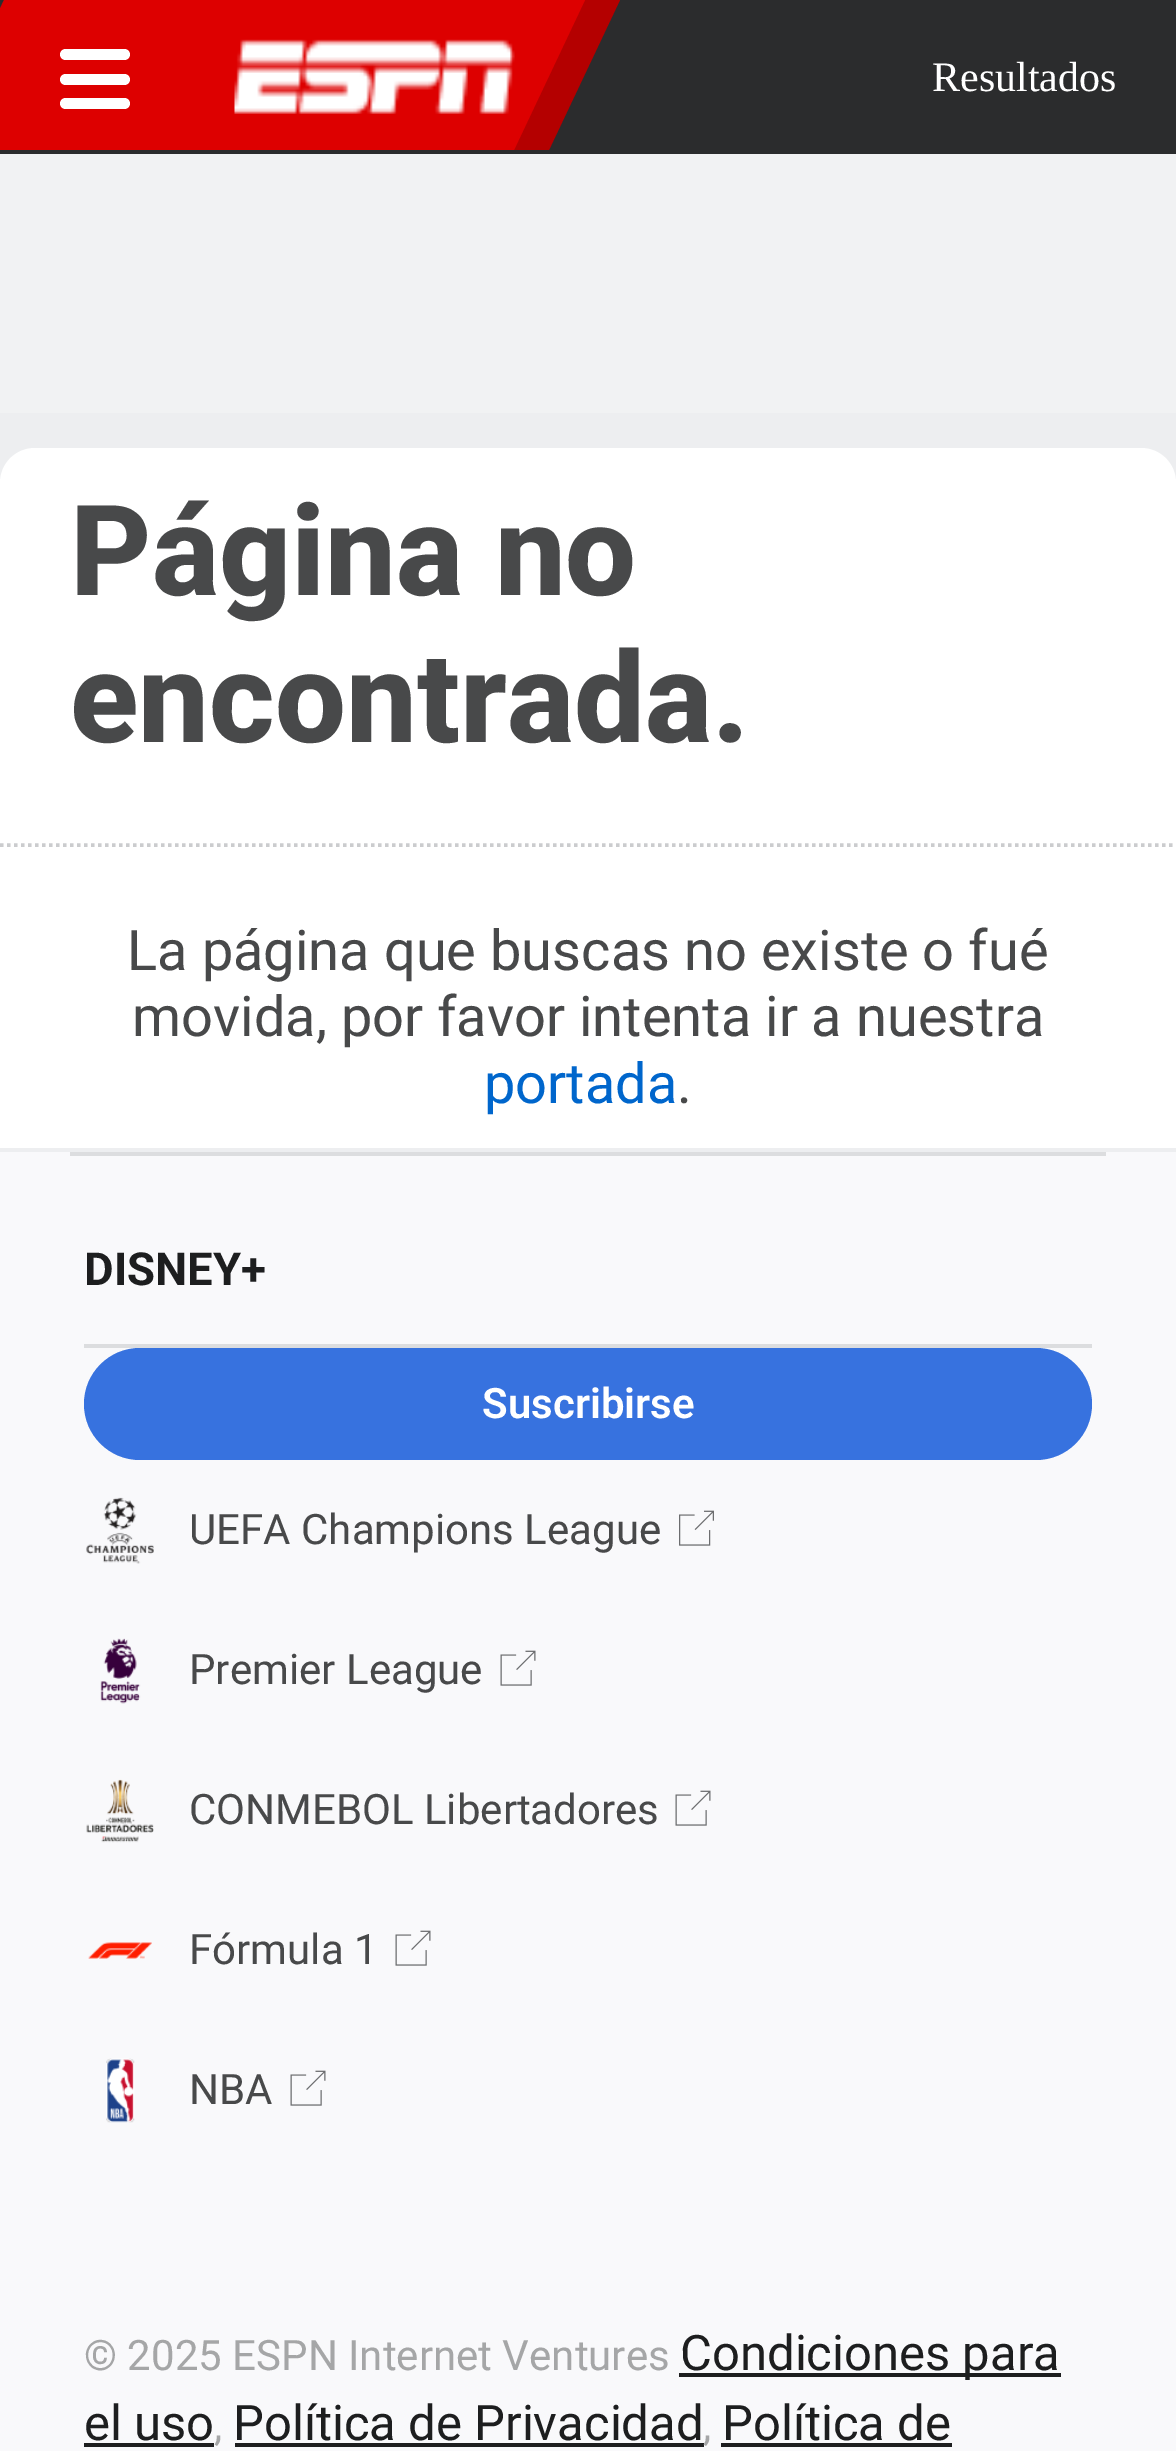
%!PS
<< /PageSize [1176 2451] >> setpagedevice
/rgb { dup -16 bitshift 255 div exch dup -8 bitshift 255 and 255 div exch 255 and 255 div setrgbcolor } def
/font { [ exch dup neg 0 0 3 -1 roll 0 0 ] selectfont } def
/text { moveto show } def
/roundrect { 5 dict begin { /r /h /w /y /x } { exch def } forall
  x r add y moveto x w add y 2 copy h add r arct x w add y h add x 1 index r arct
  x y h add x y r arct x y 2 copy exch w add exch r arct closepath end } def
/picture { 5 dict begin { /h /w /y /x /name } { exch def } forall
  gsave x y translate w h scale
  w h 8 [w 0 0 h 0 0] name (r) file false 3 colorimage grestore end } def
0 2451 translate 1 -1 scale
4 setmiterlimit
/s1 { /LiberationSerif-Regular 42 font 16#FFFFFF rgb } def
/s2 { /Roboto-ExtraBold 126 font 16#48494A rgb } def
/s3 { /Roboto-Regular 56 font 16#48494A rgb } def
/s4 { /Roboto-Regular 56 font 16#0066CC rgb } def
/s5 { /Roboto-Bold 45.5 font 16#1D1E1F rgb } def
/s6 { /Roboto-SemiBold 42 font 16#FFFFFF rgb } def
/s7 { /Roboto-Regular 42 font 16#48494A rgb } def
/s8 { /Roboto-Regular 42 font 16#A5A6A7 rgb } def
/s9 { /Roboto-Regular 49 font 16#1D1E1F rgb } def
16#F1F2F3 rgb
0 0 1176 2451 rectfill
16#2B2C2D rgb
0 0 1176 154 rectfill
16#B40000 rgb
189 0 moveto 620 0 lineto 549 150 lineto 119 150 lineto closepath fill
16#DD0000 rgb
4 0 moveto 585 0 lineto 514 150 lineto -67 150 lineto closepath fill
(pic1.raw) 234 39 281 75 picture
16#FFFFFF rgb
60 74 70 11 5.5 roundrect fill
60 49 70 11 5.5 roundrect fill
60 98 70 11 5.5 roundrect fill
s1
(Resultados) 932 91 text
16#EDEEF0 rgb
0 413 1176 739 rectfill
16#FFFFFF rgb
35 448 moveto 1141 448 lineto 1160.5 448 1176 463.5 1176 483 curveto 1176 1148 lineto 0 1148 lineto 0 483 lineto 0 463.5 15.5 448 35 448 curveto closepath fill
16#CBCCCE rgb
3.5 setlinewidth
[3.5 3.5] 0 setdash
0 845 moveto 1176 845 lineto stroke
s2
(Página no) 70 595 text
(encontrada.) 70 742 text
s3
(La página que buscas no existe o fué) 127 970 text
(movida, por favor intenta ir a nuestra) 132 1036 text
s4
(portada) 484 1103 text
s3
(.) 677 1103 text
16#F9F9FB rgb
0 1152 1176 1299 rectfill
16#DCDDDF rgb
70 1152 1036 4 rectfill
84 1344 1008 4 rectfill
s5
(DISNEY+) 84 1285 text
16#3772DF rgb
84 1348 1008 112 56 roundrect fill
s6
(Suscribirse) 482 1418 text
(pic2.raw) 86 1497 68 67 picture
s7
(UEFA Champions League) 189 1544 text
(pic3.raw) 679 1510 35 36 picture
(pic4.raw) 100 1638 41 66 picture
(Premier League) 189 1684 text
(pic5.raw) 500 1650 36 36 picture
(pic6.raw) 86 1779 68 64 picture
(CONMEBOL Libertadores) 189 1824 text
(pic5.raw) 675 1790 36 36 picture
(pic7.raw) 88 1942 64 17 picture
(Fórmula 1) 189 1964 text
(pic5.raw) 395 1930 36 36 picture
(pic8.raw) 106 2058 29 65 picture
(NBA) 189 2104 text
(pic5.raw) 290 2070 36 36 picture
s8
(© 2025 ESPN Internet Ventures) 84 2370 text
16#1D1E1F rgb
679 2373 382 4 rectfill
s9
(Condiciones para) 680 2370 text
(el uso) 84 2440 text
84 2443 130 4 rectfill
s8
(,) 214 2440 text
s9
(Política de Privacidad) 233 2440 text
235 2443 469 4 rectfill
s8
(,) 703 2440 text
s9
(Política de) 722 2440 text
721 2443 231 4 rectfill
showpage
